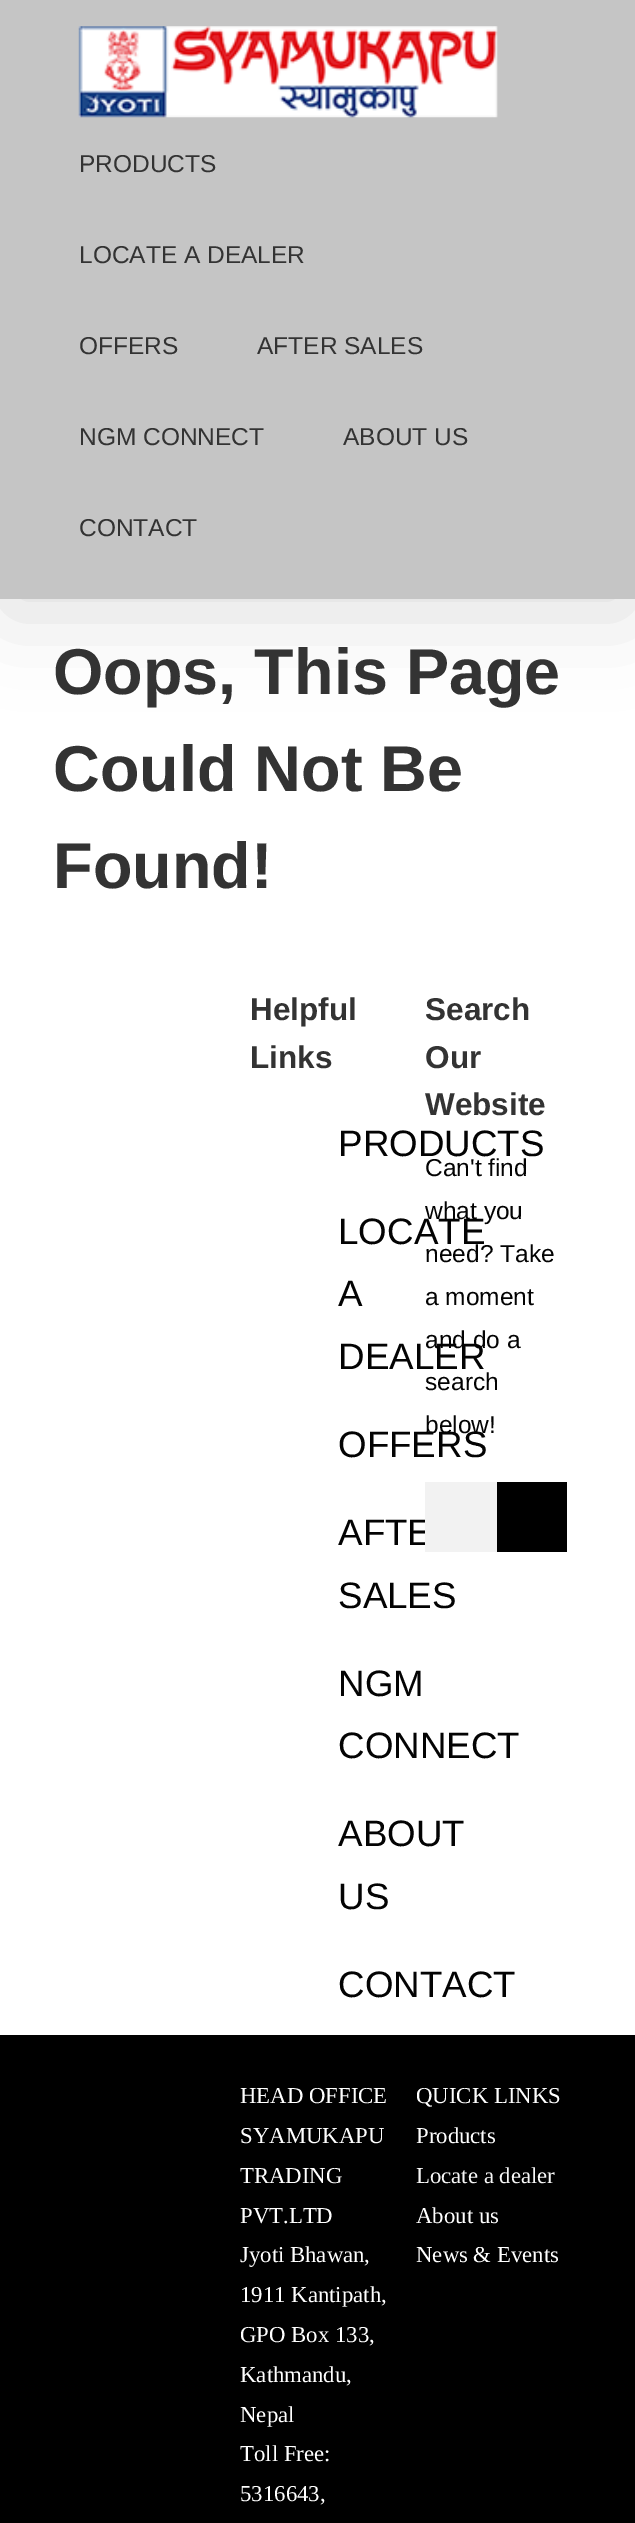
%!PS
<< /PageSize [635 2523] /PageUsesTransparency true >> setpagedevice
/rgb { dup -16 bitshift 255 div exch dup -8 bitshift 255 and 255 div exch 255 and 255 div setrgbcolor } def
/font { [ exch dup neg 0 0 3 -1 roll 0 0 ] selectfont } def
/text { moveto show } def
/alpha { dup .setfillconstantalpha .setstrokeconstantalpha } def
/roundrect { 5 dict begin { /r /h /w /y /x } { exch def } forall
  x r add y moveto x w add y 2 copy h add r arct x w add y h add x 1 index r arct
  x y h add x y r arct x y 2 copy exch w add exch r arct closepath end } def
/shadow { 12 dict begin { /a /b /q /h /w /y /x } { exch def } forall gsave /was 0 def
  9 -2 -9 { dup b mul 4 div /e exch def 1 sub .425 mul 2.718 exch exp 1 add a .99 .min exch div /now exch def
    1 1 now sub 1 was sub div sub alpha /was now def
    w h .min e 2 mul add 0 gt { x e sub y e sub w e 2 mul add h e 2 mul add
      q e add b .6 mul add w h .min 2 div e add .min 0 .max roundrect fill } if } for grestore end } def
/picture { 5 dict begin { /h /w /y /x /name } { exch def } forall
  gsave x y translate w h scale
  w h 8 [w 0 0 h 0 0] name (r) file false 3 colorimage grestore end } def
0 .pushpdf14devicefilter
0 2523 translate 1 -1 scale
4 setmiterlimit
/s1 { /LiberationSans-Regular 24.5 font 16#333333 rgb } def
/s2 { /LiberationSans-Bold 64.75 font 16#333333 rgb } def
/s3 { /LiberationSans-Bold 31.5 font 16#333333 rgb } def
/s4 { /LiberationSans-Regular 36.75 font 16#030303 rgb } def
/s5 { /LiberationSans-Regular 24.5 font 16#030303 rgb } def
/s6 { /LiberationSerif-Regular 22.75 font 16#FFFFFF rgb } def
/s7 { /LiberationSerif-Regular 22.75 font 16#F7F7F7 rgb } def
16#FFFFFF rgb
0 0 635 2523 rectfill
gsave
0 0 moveto 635 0 lineto 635 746 lineto 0 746 lineto closepath 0 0 moveto 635 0 lineto 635 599 lineto 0 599 lineto closepath eoclip newpath
16#000000 rgb
4 21 628 592 0 44 0.14 shadow
grestore
0.33 alpha
16#4F4F4F rgb
0 0 635 599 rectfill
1 alpha
(pic1.raw) 78 26 420 92 picture
s1
(PRODUCTS) 79 172 text
(LOCATE A DEALER) 79 263 text
(OFFERS) 79 354 text
(AFTER SALES) 257 354 text
(NGM CONNECT) 79 445 text
(ABOUT US) 343 445 text
(CONTACT) 79 536 text
s2
(Oops, This Page) 53 694 text
(Could Not Be) 53 791 text
(Found!) 53 888 text
s3
(Helpful) 250 1020 text
(Links) 250 1068 text
s4
(PRODUCTS) 338 1156 text
(LOCATE) 338 1244 text
(A) 338 1306 text
(DEALER) 338 1369 text
(OFFERS) 338 1457 text
(AFTE) 338 1545 text
(SALES) 338 1608 text
(NGM) 338 1696 text
(CONNECT) 338 1758 text
(ABOUT) 338 1846 text
(US) 338 1909 text
(CONTACT) 338 1997 text
s3
(Search) 425 1020 text
(Our) 425 1068 text
(Website) 425 1115 text
s5
(Can't find) 425 1176 text
(what you) 425 1219 text
(need? Take) 425 1262 text
(a moment) 425 1305 text
(and do a) 425 1348 text
(search) 425 1390 text
(below!) 425 1433 text
16#F2F2F2 rgb
425 1482 72 70 rectfill
16#000000 rgb
497 1482 70 70 rectfill
0 2035 635 488 rectfill
s6
(HEAD OFFICE) 240 2103 text
(SYAMUKAPU) 240 2143 text
(TRADING) 240 2183 text
(PVT.LTD) 240 2223 text
(Jyoti Bhawan,) 240 2262 text
(1911 Kantipath,) 240 2302 text
(GPO Box 133,) 240 2342 text
(Kathmandu,) 240 2382 text
(Nepal) 240 2422 text
(Toll Free:) 240 2461 text
(5316643,) 240 2501 text
(QUICK LINKS) 416 2103 text
(Products) 416 2143 text
s7
(Locate a dealer) 416 2183 text
s6
(About us) 416 2223 text
(News & Events) 416 2262 text
.poppdf14devicefilter showpage
